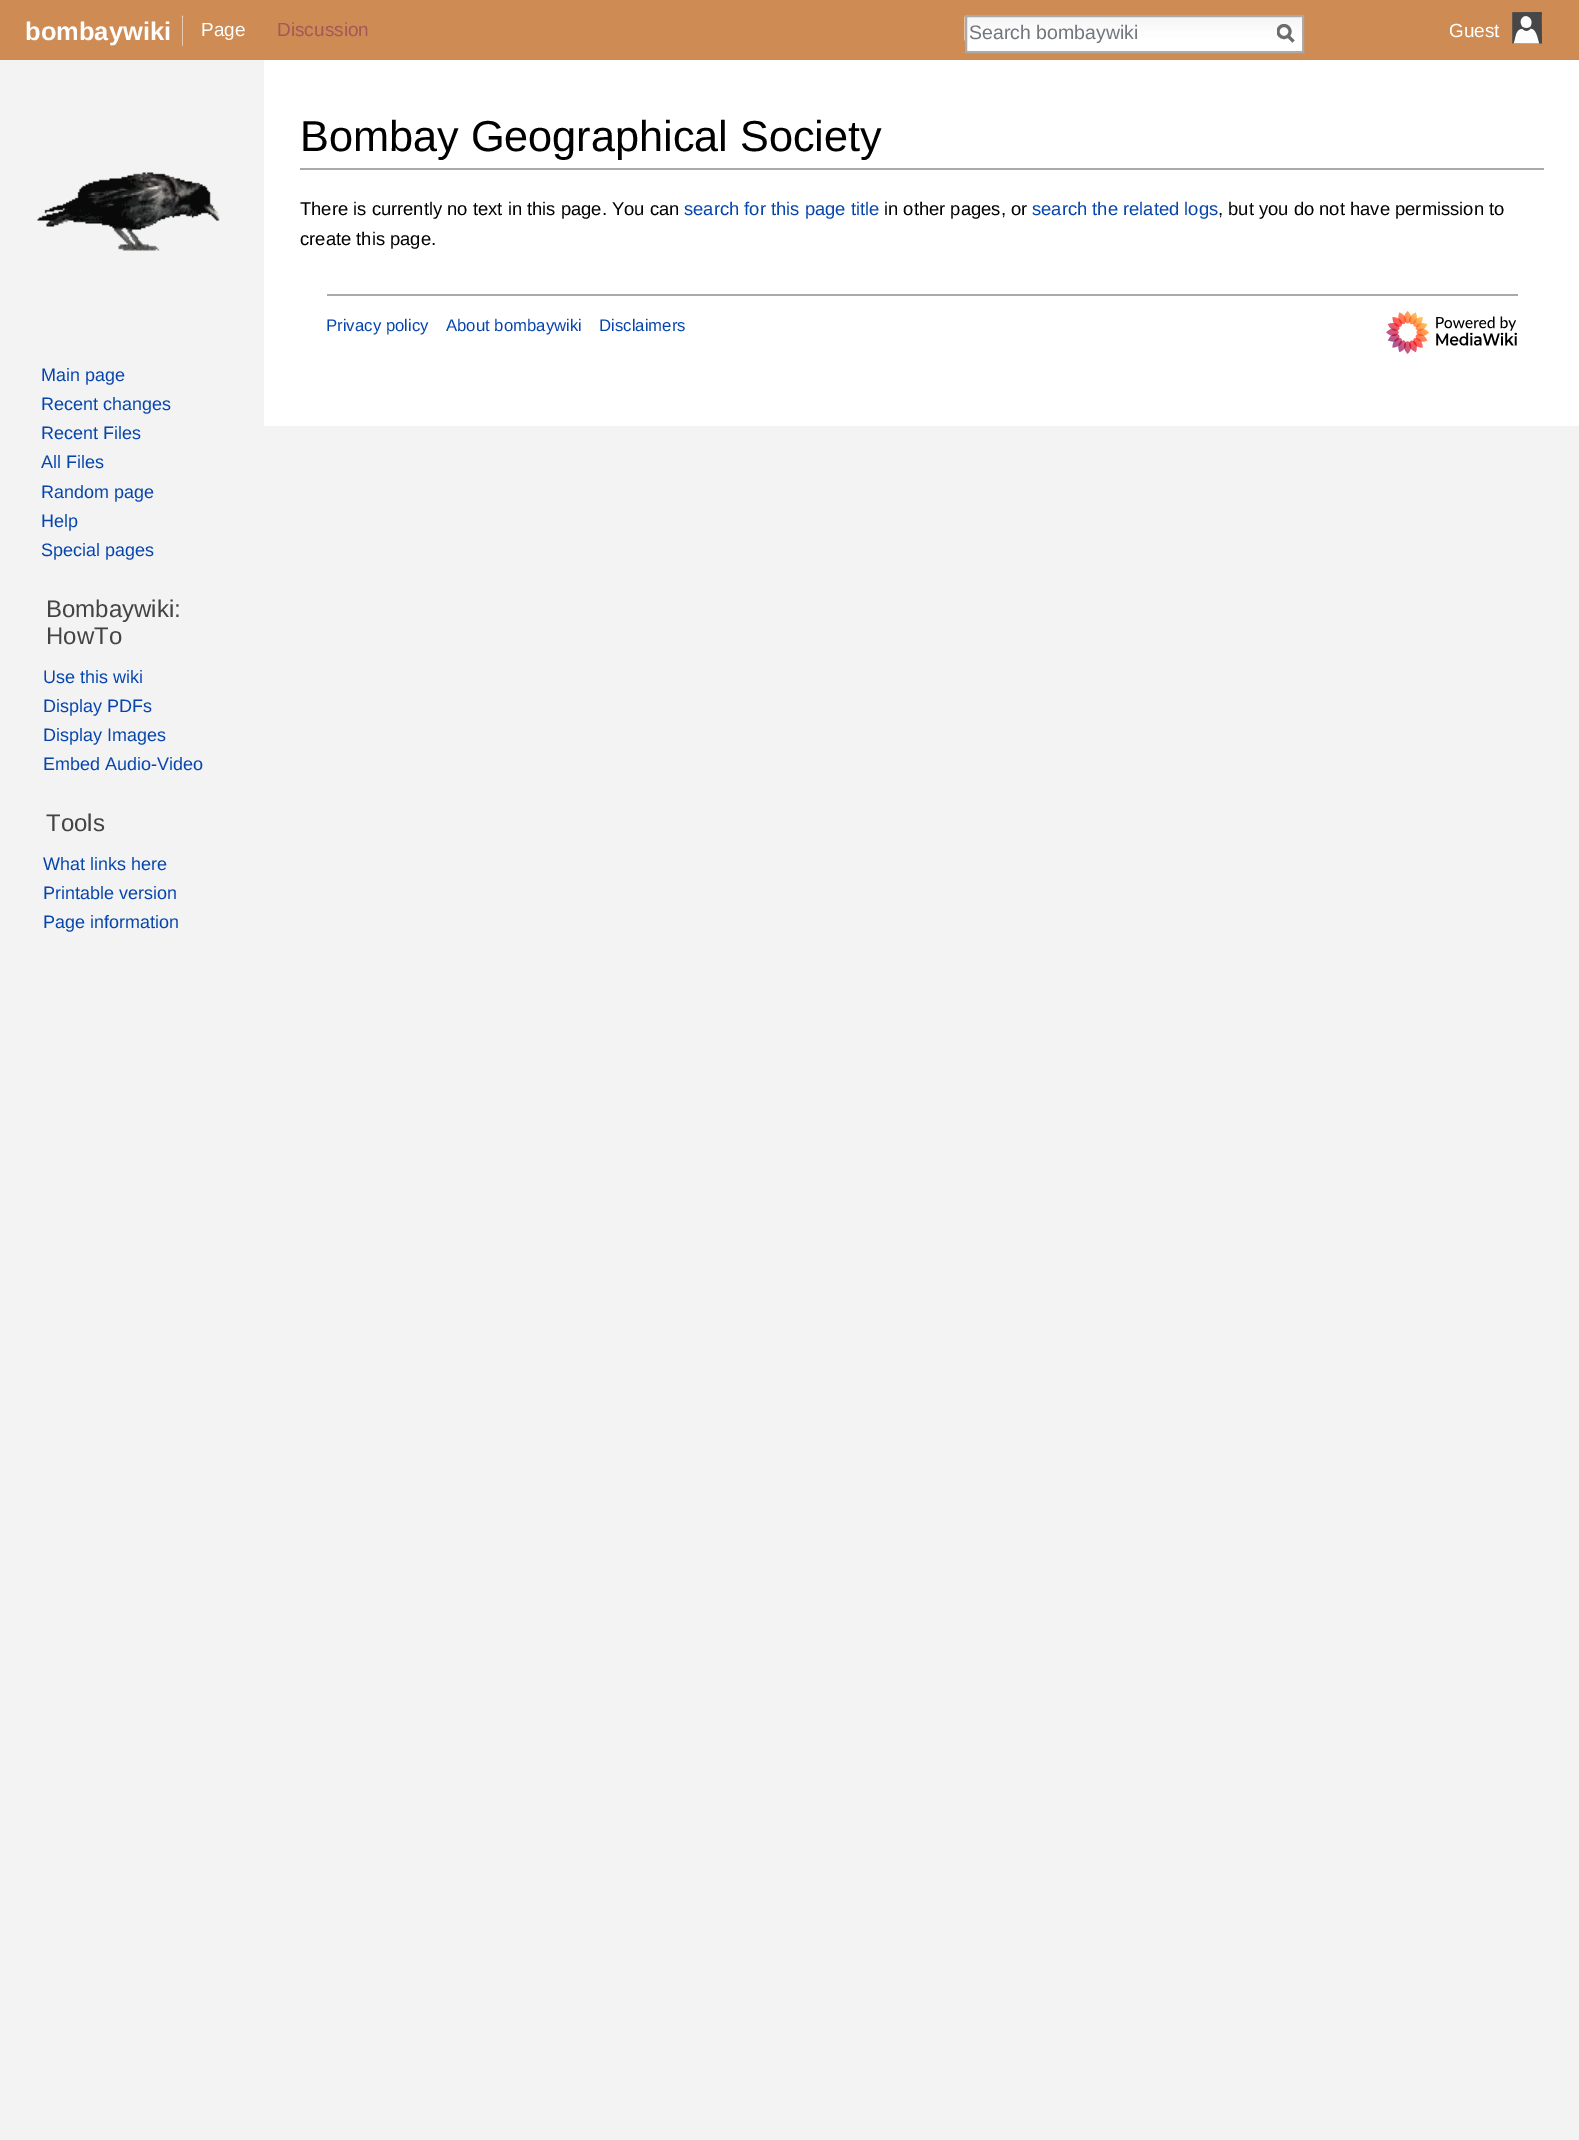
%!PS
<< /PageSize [1579 2140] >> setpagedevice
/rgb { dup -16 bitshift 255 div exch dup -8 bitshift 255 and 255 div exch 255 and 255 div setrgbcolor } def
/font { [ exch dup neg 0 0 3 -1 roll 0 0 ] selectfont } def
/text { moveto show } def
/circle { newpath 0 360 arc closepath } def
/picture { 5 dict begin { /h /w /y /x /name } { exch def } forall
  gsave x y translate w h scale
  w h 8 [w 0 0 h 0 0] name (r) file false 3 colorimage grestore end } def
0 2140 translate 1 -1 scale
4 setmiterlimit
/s1 { /LiberationSans-Bold 25.5 font 16#FFFFFF rgb } def
/s2 { /LiberationSans-Regular 19 font 16#FFFFFF rgb } def
/s3 { /LiberationSans-Regular 19 font 16#A55858 rgb } def
/s4 { /LiberationSans-Regular 19.5 font 16#72777D rgb } def
/s5 { /LiberationSans-Regular 18 font 16#0645AD rgb } def
/s6 { /LiberationSans-Regular 24 font 16#444444 rgb } def
/s7 { /LiberationSans-Regular 43.25 font 16#000000 rgb } def
/s8 { /LiberationSans-Regular 18.4 font 16#000000 rgb } def
/s9 { /LiberationSans-Regular 18.4 font 16#0645AD rgb } def
/s10 { /LiberationSans-Regular 16.75 font 16#0645AD rgb } def
16#F3F3F3 rgb
0 0 1579 2140 rectfill
16#CF8B54 rgb
0 0 1579 60 rectfill
s1
(bombaywiki) 25 40 text
gsave
182 0 2 53 rectclip
16#FEFEFE rgb
181.5 31 moveto 181.5 16.5 lineto 181.5 15.5 183 15 182.5 17.5 curveto 182.5 45.5 lineto 182 46 lineto 181.5 45 lineto closepath fill
grestore
s2
(Page) 201 36 text
s3
(Discussion) 277 36 text
16#FFFFFF rgb
967 40 335 11 rectfill
(pic1.raw) 964 16 338 25 picture
16#AAAAAA rgb
2 setlinewidth
966 16 337 36 rectstroke
s4
(Search bombaywiki) 969 39 text
16#6C6C6C rgb
3 setlinewidth
1293.5 41.5 moveto 1287.5 35.5 lineto stroke
gsave
1277 24 18 20 rectclip
1284 31.5 6 circle stroke
grestore
s2
(Guest) 1449 37 text
(pic2.raw) 1512 12 30 32 picture
(pic3.raw) 37 172 183 79 picture
s5
(Main page) 41 381 text
(Recent changes) 41 410 text
(Recent Files) 41 439 text
(All Files) 41 468 text
(Random page) 41 498 text
(Help) 41 527 text
(Special pages) 41 556 text
s6
(Bombaywiki:) 46 617 text
(HowTo) 46 644 text
s5
(Use this wiki) 43 683 text
(Display PDFs) 43 712 text
(Display Images) 43 741 text
(Embed Audio-Video) 43 770 text
s6
(Tools) 46 831 text
s5
(What links here) 43 870 text
(Printable version) 43 899 text
(Page information) 43 928 text
16#FFFFFF rgb
264 60 1315 366 rectfill
16#AAAAAA rgb
300 168 1244 2 rectfill
s7
(Bombay Geographical Society) 300 151 text
s8
(There is currently no text in this page. You can) 300 215 text
s9
(search for this page title) 684 215 text
s8
(in other pages, or) 884 215 text
s9
(search the related logs) 1032 215 text
s8
(, but you do not have permission to) 1218 215 text
(create this page.) 300 245 text
16#AAAAAA rgb
327 294 1191 2 rectfill
s10
(Privacy policy) 326 331 text
(About bombaywiki) 446 331 text
(Disclaimers) 599 331 text
(pic4.raw) 1386 310 131 44 picture
showpage
